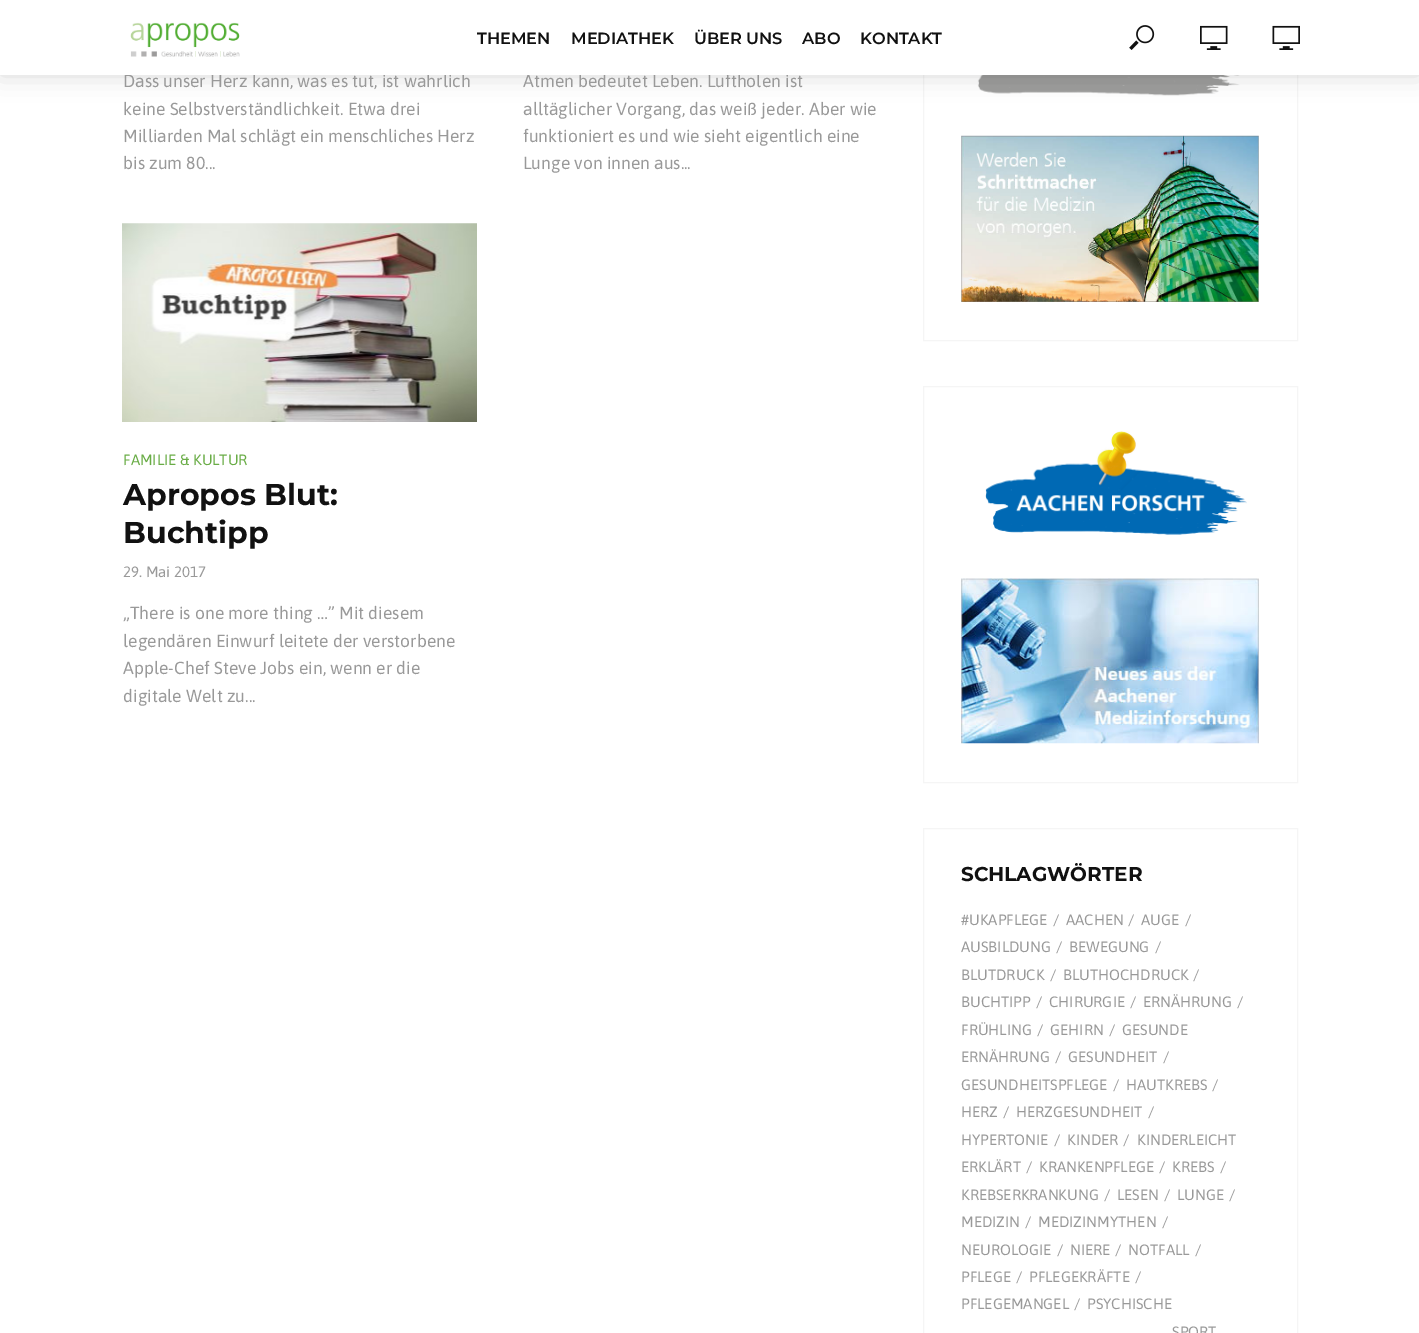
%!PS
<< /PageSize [1419 1333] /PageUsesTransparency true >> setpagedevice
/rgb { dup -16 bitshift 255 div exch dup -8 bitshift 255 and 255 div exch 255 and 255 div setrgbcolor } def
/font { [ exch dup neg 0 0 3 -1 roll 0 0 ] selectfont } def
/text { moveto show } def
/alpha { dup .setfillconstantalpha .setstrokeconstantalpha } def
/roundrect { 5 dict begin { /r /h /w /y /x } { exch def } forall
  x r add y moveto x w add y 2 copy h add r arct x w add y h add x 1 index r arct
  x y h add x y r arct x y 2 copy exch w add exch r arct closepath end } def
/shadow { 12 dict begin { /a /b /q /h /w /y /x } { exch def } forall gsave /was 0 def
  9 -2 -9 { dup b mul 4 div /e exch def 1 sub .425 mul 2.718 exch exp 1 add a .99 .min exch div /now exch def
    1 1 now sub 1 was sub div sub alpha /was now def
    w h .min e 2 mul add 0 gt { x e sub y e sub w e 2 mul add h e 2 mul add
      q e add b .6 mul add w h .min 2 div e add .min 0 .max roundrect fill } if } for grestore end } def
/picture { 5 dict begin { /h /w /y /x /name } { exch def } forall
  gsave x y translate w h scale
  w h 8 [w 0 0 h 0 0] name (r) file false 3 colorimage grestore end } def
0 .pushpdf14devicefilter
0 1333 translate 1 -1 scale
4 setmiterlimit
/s1 { /Asap-Regular 17.5 font 16#999999 rgb } def
/s2 { /Montserrat-SemiBold 16.25 font 16#111111 rgb } def
/s3 { /Asap-Regular 15 font 16#69AC46 rgb } def
/s4 { /Montserrat-Bold 30 font 16#111111 rgb } def
/s5 { /Asap-Regular 15 font 16#999999 rgb } def
/s6 { /Montserrat-Bold 20 font 16#111111 rgb } def
16#FFFFFF rgb
0 0 1419 1333 rectfill
16#F5F5F5 rgb
923.5 -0.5 374 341 rectstroke
(pic6.raw) 977 75 263 21 picture
16#000000 rgb
0 0 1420 75 0 12.5 0.15 shadow
s1
(Dass unser Herz kann, was es tut, ist wahrlich) 123 87 text
(Atmen bedeutet Leben. Luftholen ist) 523 87 text
16#FFFFFF rgb
0 0 1419 75 rectfill
(pic1.raw) 130 22 110 35 picture
s2
(THEMEN) 477 44 text
(MEDIATHEK) 571 44 text
(ÜBER UNS) 694 44 text
(ABO) 802 44 text
(KONTAKT) 860 44 text
(pic2.raw) 1129 25 26 25 picture
(pic3.raw) 1200 25 28 25 picture
(pic4.raw) 1272 25 28 25 picture
s1
(keine Selbstverständlichkeit. Etwa drei) 123 115 text
(Milliarden Mal schlägt ein menschliches Herz) 123 142 text
(bis zum 80...) 123 169 text
(alltäglicher Vorgang, das weiß jeder. Aber wie) 523 115 text
(funktioniert es und wie sieht eigentlich eine) 523 142 text
(Lunge von innen aus...) 523 169 text
(pic5.raw) 122 223 355 199 picture
s3
(FAMILIE & KULTUR) 123 465 text
s4
(Apropos Blut:) 123 505 text
(Buchtipp) 123 543 text
s5
(29. Mai 2017) 123 577 text
s1
(„There is one more thing …” Mit diesem) 123 619 text
(legendären Einwurf leitete der verstorbene) 123 647 text
(Apple-Chef Steve Jobs ein, wenn er die) 123 674 text
(digitale Welt zu...) 123 702 text
(pic7.raw) 961 135 298 167 picture
16#F5F5F5 rgb
923.5 386.5 374 396 rectstroke
(pic8.raw) 985 431 262 104 picture
(pic9.raw) 961 578 298 166 picture
923.5 828.5 374 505 rectstroke
s6
(SCHLAGWÖRTER) 961 881 text
s5
(#UKAPFLEGE) 961 925 text
(/) 1053 925 text
(AACHEN) 1066 925 text
(/) 1128 925 text
(AUGE) 1141 925 text
(/) 1185 925 text
(AUSBILDUNG) 961 952 text
(/) 1056 952 text
(BEWEGUNG) 1069 952 text
(/) 1155 952 text
(BLUTDRUCK) 961 980 text
(/) 1050 980 text
(BLUTHOCHDRUCK) 1063 980 text
(/) 1193 980 text
(BUCHTIPP) 961 1007 text
(/) 1036 1007 text
(CHIRURGIE) 1049 1007 text
(/) 1130 1007 text
(ERNÄHRUNG) 1143 1007 text
(/) 1237 1007 text
(FRÜHLING) 961 1035 text
(/) 1037 1035 text
(GEHIRN) 1050 1035 text
(/) 1109 1035 text
(GESUNDE) 1122 1035 text
(ERNÄHRUNG) 961 1062 text
(/) 1055 1062 text
(GESUNDHEIT) 1068 1062 text
(/) 1163 1062 text
(GESUNDHEITSPFLEGE) 961 1090 text
(/) 1113 1090 text
(HAUTKREBS) 1126 1090 text
(/) 1212 1090 text
(HERZ) 961 1117 text
(/) 1003 1117 text
(HERZGESUNDHEIT) 1016 1117 text
(/) 1148 1117 text
(HYPERTONIE) 961 1145 text
(/) 1054 1145 text
(KINDER) 1067 1145 text
(/) 1123 1145 text
(KINDERLEICHT) 1137 1145 text
(ERKLÄRT) 961 1172 text
(/) 1026 1172 text
(KRANKENPFLEGE) 1039 1172 text
(/) 1159 1172 text
(KREBS) 1172 1172 text
(/) 1220 1172 text
(KREBSERKRANKUNG) 961 1200 text
(/) 1104 1200 text
(LESEN) 1117 1200 text
(/) 1164 1200 text
(LUNGE) 1177 1200 text
(/) 1229 1200 text
(MEDIZIN) 961 1227 text
(/) 1025 1227 text
(MEDIZINMYTHEN) 1038 1227 text
(/) 1162 1227 text
(NEUROLOGIE) 961 1255 text
(/) 1057 1255 text
(NIERE) 1070 1255 text
(/) 1115 1255 text
(NOTFALL) 1128 1255 text
(/) 1195 1255 text
(PFLEGE) 961 1282 text
(/) 1016 1282 text
(PFLEGEKRÄFTE) 1029 1282 text
(/) 1135 1282 text
(PFLEGEMANGEL) 961 1309 text
(/) 1074 1309 text
(PSYCHISCHE) 1087 1309 text
(SPORT) 1172 1337 text
.poppdf14devicefilter showpage
